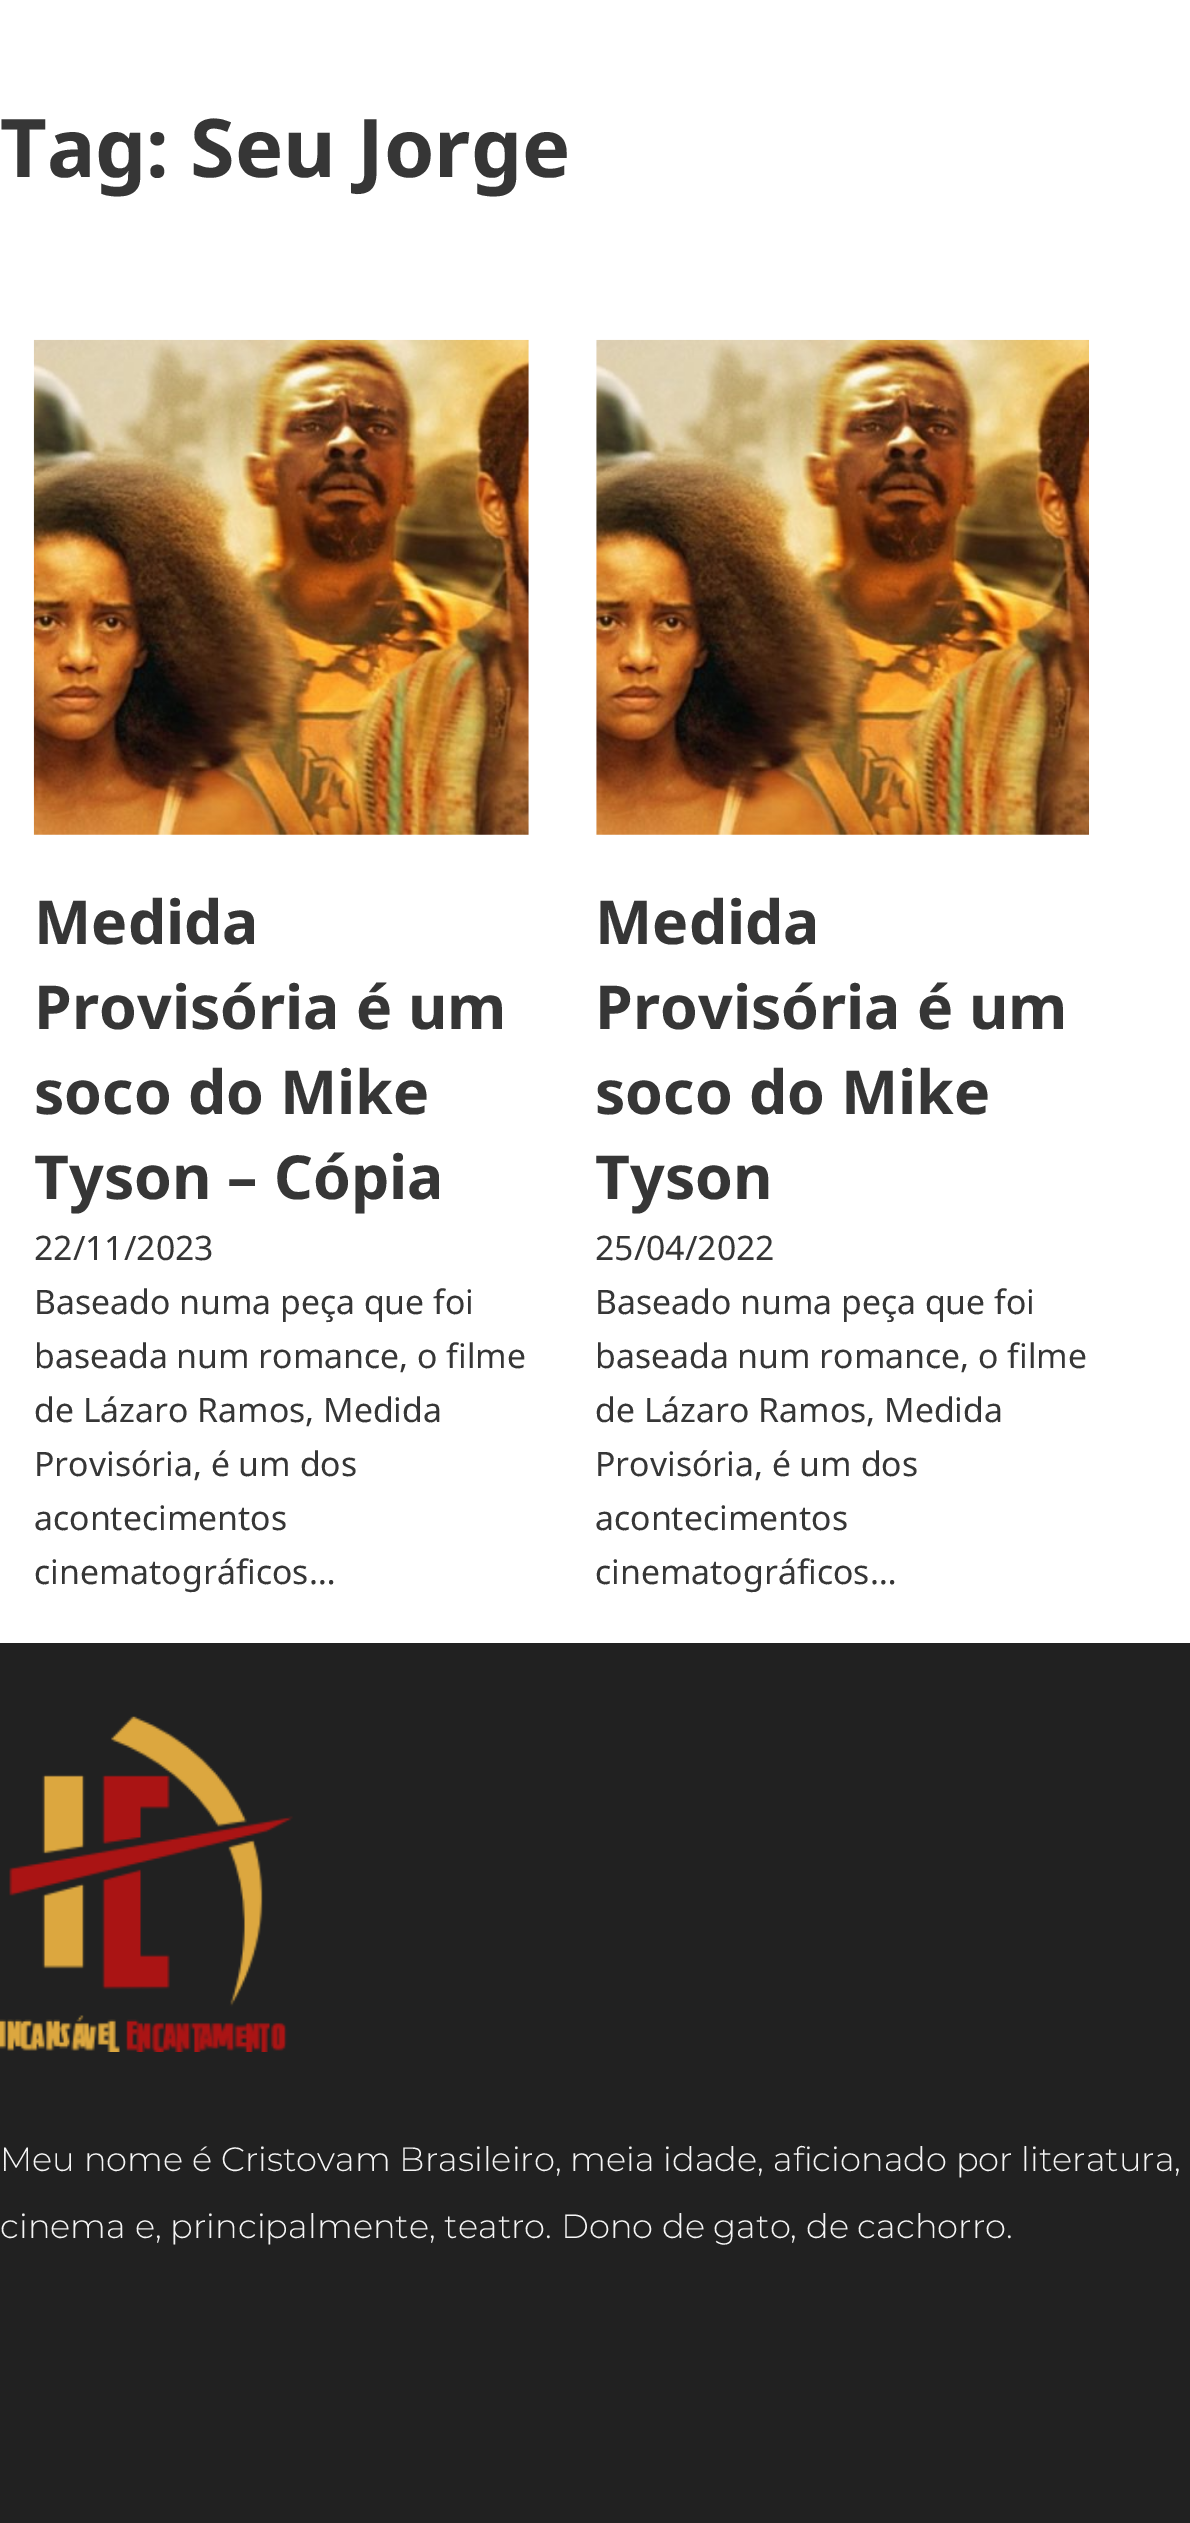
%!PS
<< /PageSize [1190 2523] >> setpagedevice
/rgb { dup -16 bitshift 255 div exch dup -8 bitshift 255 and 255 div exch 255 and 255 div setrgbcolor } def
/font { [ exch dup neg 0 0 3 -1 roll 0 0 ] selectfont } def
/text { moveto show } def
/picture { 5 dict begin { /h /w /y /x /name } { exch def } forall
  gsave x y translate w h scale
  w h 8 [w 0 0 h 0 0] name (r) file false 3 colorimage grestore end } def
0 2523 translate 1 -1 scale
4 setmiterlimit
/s1 { /NotoSans-Bold 81 font 16#363636 rgb } def
/s2 { /NotoSans-Bold 60.75 font 16#363636 rgb } def
/s3 { /NotoSans-Regular 33.75 font 16#363636 rgb } def
/s4 { /Montserrat-Light 33.75 font 16#F5F5F5 rgb } def
16#FFFFFF rgb
0 0 1190 2523 rectfill
s1
(Tag: Seu Jorge) 0 177 text
(pic1.raw) 33 339 496 496 picture
s2
(Medida) 34 944 text
(Provisória é um) 34 1029 text
(soco do Mike) 34 1114 text
(Tyson – Cópia) 34 1199 text
s3
(22/11/2023) 34 1260 text
(Baseado numa peça que foi) 34 1314 text
(baseada num romance, o filme) 34 1368 text
(de Lázaro Ramos, Medida) 34 1422 text
(Provisória, é um dos) 34 1476 text
(acontecimentos) 34 1530 text
(cinematográficos…) 34 1584 text
(pic2.raw) 596 339 493 496 picture
s2
(Medida) 595 944 text
(Provisória é um) 595 1029 text
(soco do Mike) 595 1114 text
(Tyson) 595 1199 text
s3
(25/04/2022) 595 1260 text
(Baseado numa peça que foi) 595 1314 text
(baseada num romance, o filme) 595 1368 text
(de Lázaro Ramos, Medida) 595 1422 text
(Provisória, é um dos) 595 1476 text
(acontecimentos) 595 1530 text
(cinematográficos…) 595 1584 text
16#212121 rgb
0 1643 1190 880 rectfill
(pic3.raw) 0 1716 293 336 picture
s4
(Meu nome é Cristovam Brasileiro, meia idade, aficionado por literatura,) 0 2171 text
(cinema e, principalmente, teatro. Dono de gato, de cachorro.) 0 2238 text
showpage
